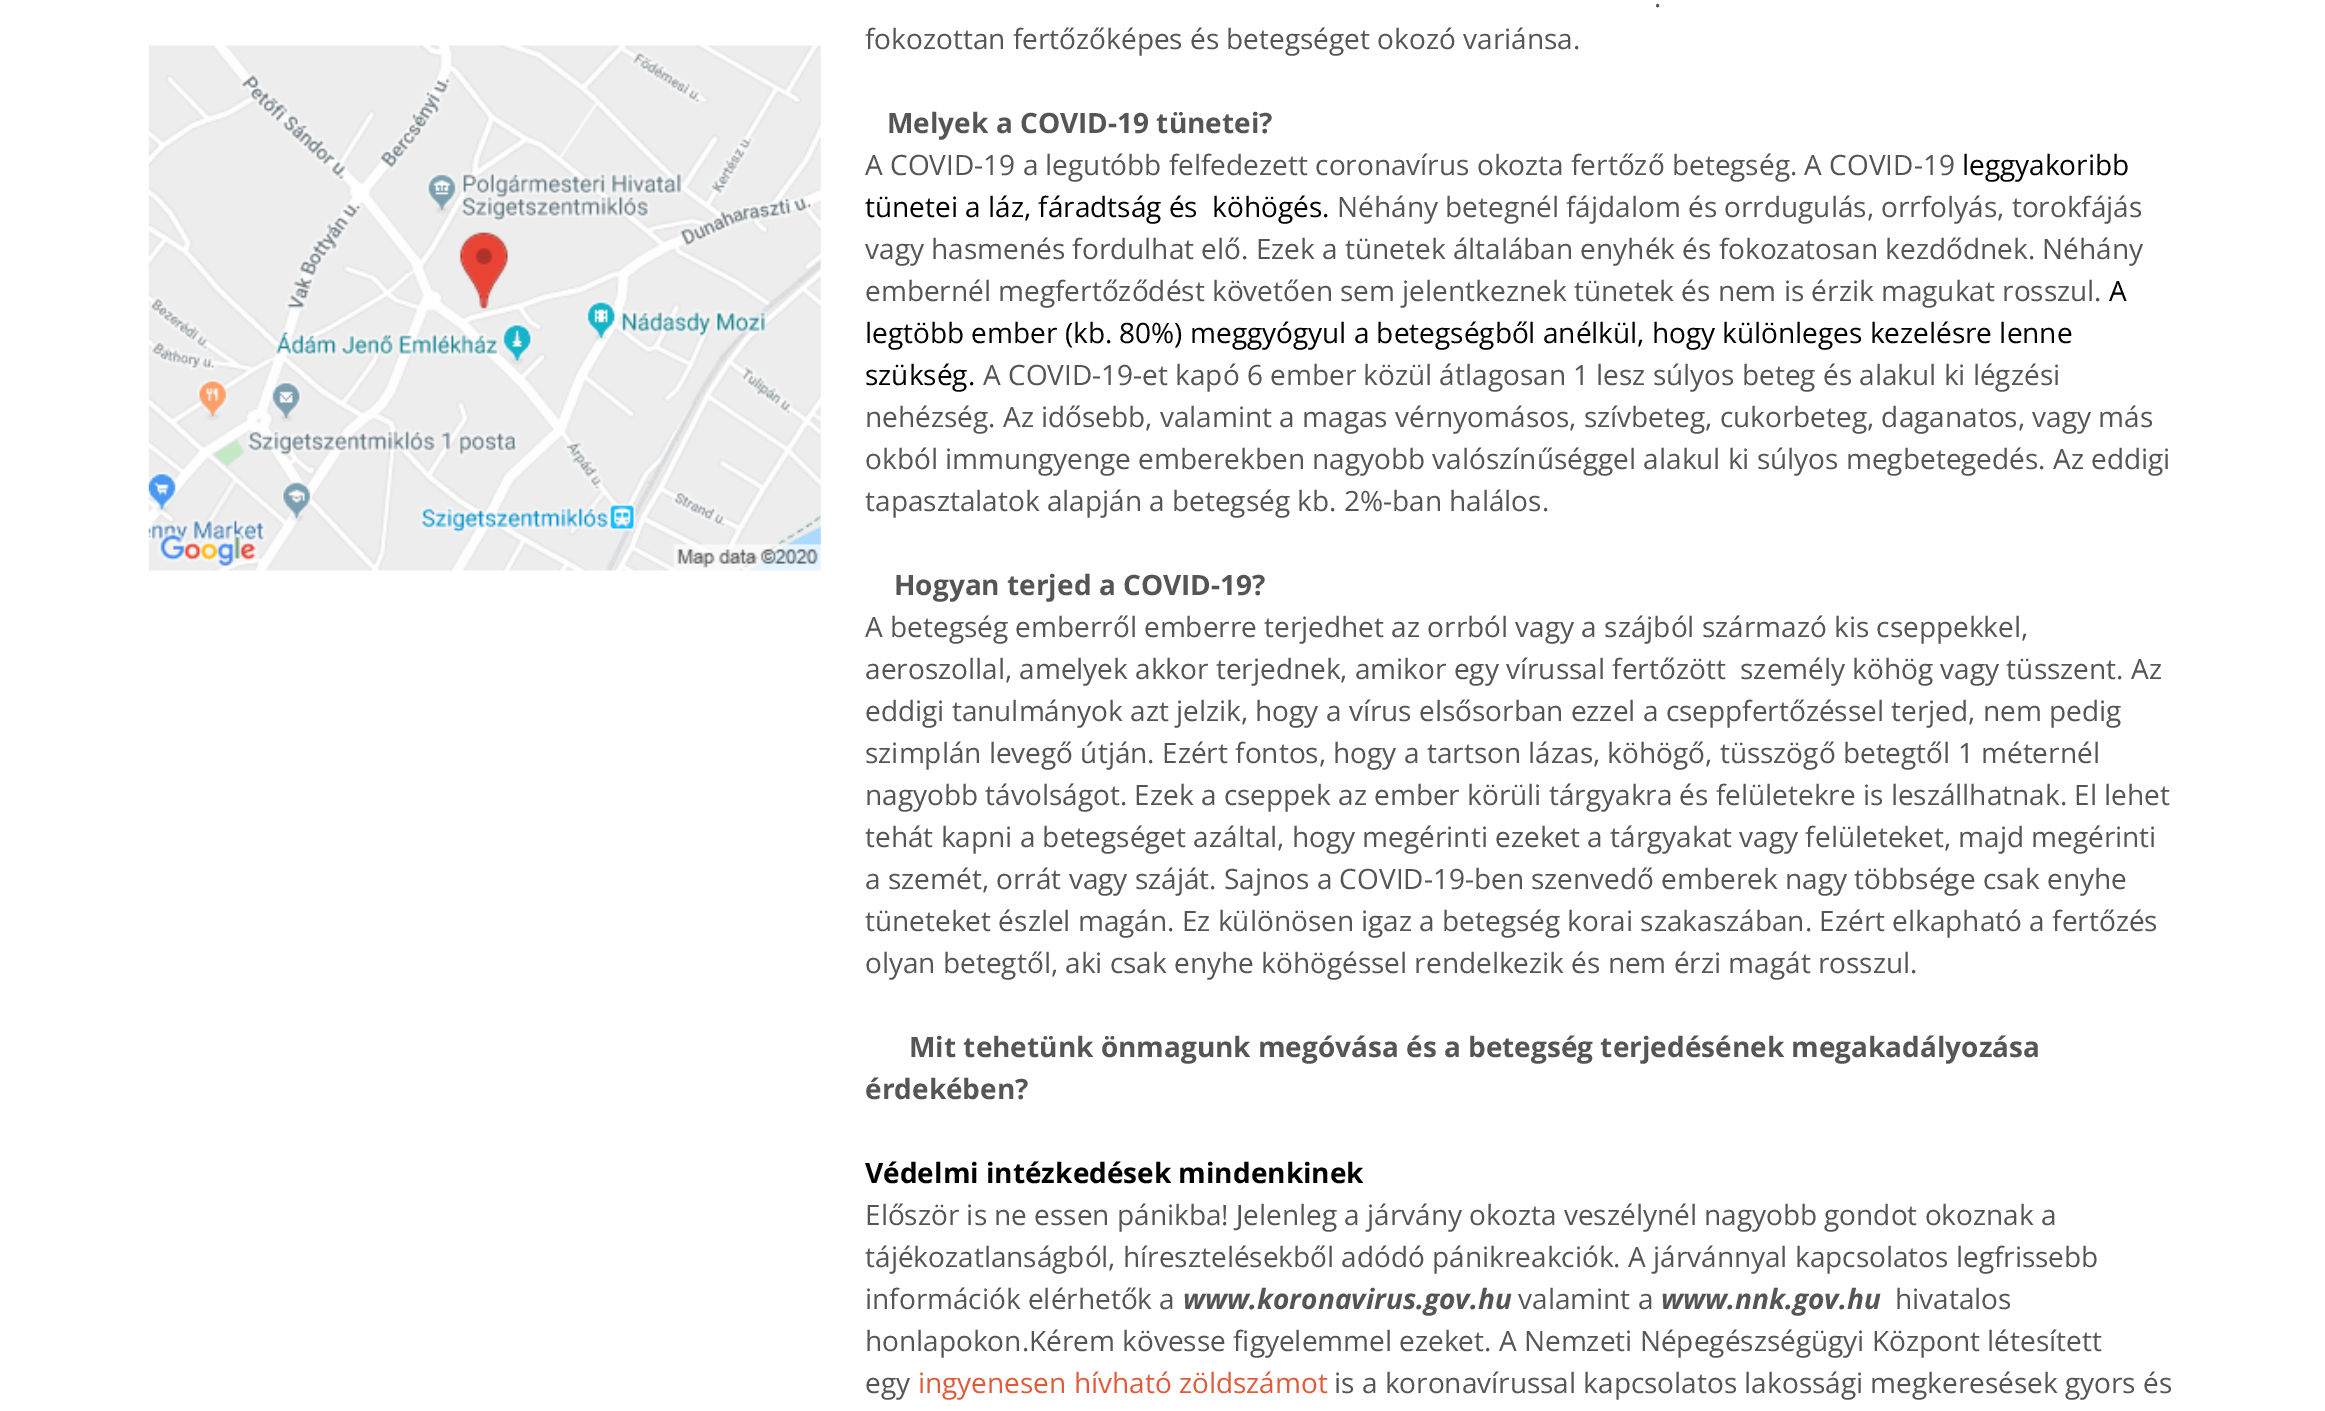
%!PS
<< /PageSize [2325 1411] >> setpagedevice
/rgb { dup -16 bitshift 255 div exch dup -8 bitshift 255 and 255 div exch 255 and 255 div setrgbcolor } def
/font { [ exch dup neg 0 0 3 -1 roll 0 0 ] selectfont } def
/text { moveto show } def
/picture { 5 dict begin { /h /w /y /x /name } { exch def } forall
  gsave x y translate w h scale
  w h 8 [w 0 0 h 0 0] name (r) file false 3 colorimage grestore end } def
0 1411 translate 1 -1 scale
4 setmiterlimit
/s1 { /OpenSans-Regular 28 font 16#555555 rgb } def
/s2 { /OpenSans-Bold 28 font 16#555555 rgb } def
/s3 { /OpenSans-Regular 28 font 16#000000 rgb } def
/s4 { /OpenSans-Bold 28 font 16#000000 rgb } def
/s5 { /OpenSans-BoldItalic 28 font 16#555555 rgb } def
/s6 { /OpenSans-Regular 28 font 16#E05B3A rgb } def
16#FFFFFF rgb
0 0 2325 1411 rectfill
(pic1.raw) 148 45 673 526 picture
s1
(.) 1654 7 text
(fokozottan fertőzőképes és betegséget okozó variánsa.) 865 49 text
s2
(Melyek a COVID-19 tünetei?) 887 133 text
s1
(A COVID-19 a legutóbb felfedezett coronavírus okozta fertőző betegség. A COVID-19) 865 175 text
s3
(leggyakoribb) 1962 175 text
(tünetei a láz, fáradtság és  köhögés.) 865 217 text
s1
(Néhány betegnél fájdalom és orrdugulás, orrfolyás, torokfájás) 1337 217 text
(vagy hasmenés fordulhat elő. Ezek a tünetek általában enyhék és fokozatosan kezdődnek. Néhány) 865 259 text
(embernél megfertőződést követően sem jelentkeznek tünetek és nem is érzik magukat rosszul.) 865 301 text
s3
(A) 2109 301 text
(legtöbb ember \(kb. 80%\) meggyógyul a betegségből anélkül, hogy különleges kezelésre lenne) 865 343 text
(szükség.) 865 385 text
s1
(A COVID-19-et kapó 6 ember közül átlagosan 1 lesz súlyos beteg és alakul ki légzési) 983 385 text
(nehézség. Az idősebb, valamint a magas vérnyomásos, szívbeteg, cukorbeteg, daganatos, vagy más) 865 427 text
(okból immungyenge emberekben nagyobb valószínűséggel alakul ki súlyos megbetegedés. Az eddigi) 865 469 text
(tapasztalatok alapján a betegség kb. 2%-ban halálos.) 865 511 text
s2
(Hogyan terjed a COVID-19?) 894 595 text
s1
(A betegség emberről emberre terjedhet az orrból vagy a szájból származó kis cseppekkel,) 865 637 text
(aeroszollal, amelyek akkor terjednek, amikor egy vírussal fertőzött  személy köhög vagy tüsszent. Az) 865 679 text
(eddigi tanulmányok azt jelzik, hogy a vírus elsősorban ezzel a cseppfertőzéssel terjed, nem pedig) 865 721 text
(szimplán levegő útján. Ezért fontos, hogy a tartson lázas, köhögő, tüsszögő betegtől 1 méternél) 865 763 text
(nagyobb távolságot. Ezek a cseppek az ember körüli tárgyakra és felületekre is leszállhatnak. El lehet) 865 805 text
(tehát kapni a betegséget azáltal, hogy megérinti ezeket a tárgyakat vagy felületeket, majd megérinti) 865 847 text
(a szemét, orrát vagy száját. Sajnos a COVID-19-ben szenvedő emberek nagy többsége csak enyhe) 865 889 text
(tüneteket észlel magán. Ez különösen igaz a betegség korai szakaszában. Ezért elkapható a fertőzés) 865 931 text
(olyan betegtől, aki csak enyhe köhögéssel rendelkezik és nem érzi magát rosszul.) 865 973 text
s2
(Mit tehetünk önmagunk megóvása és a betegség terjedésének megakadályozása) 909 1057 text
(érdekében?) 865 1099 text
s4
(Védelmi intézkedések mindenkinek) 865 1183 text
s1
(Először is ne essen pánikba! Jelenleg a járvány okozta veszélynél nagyobb gondot okoznak a) 865 1225 text
(tájékozatlanságból, híresztelésekből adódó pánikreakciók. A járvánnyal kapcsolatos legfrissebb) 865 1267 text
(információk elérhetők a) 865 1309 text
s5
(www.koronavirus.gov.hu) 1183 1309 text
s1
(valamint a) 1518 1309 text
s5
(www.nnk.gov.hu) 1661 1309 text
s1
(hivatalos) 1895 1309 text
(honlapokon.Kérem kövesse figyelemmel ezeket. A Nemzeti Népegészségügyi Központ létesített) 865 1351 text
(egy) 865 1393 text
s6
(ingyenesen hívható zöldszámot) 918 1393 text
s1
(is a koronavírussal kapcsolatos lakossági megkeresések gyors és) 1334 1393 text
showpage
